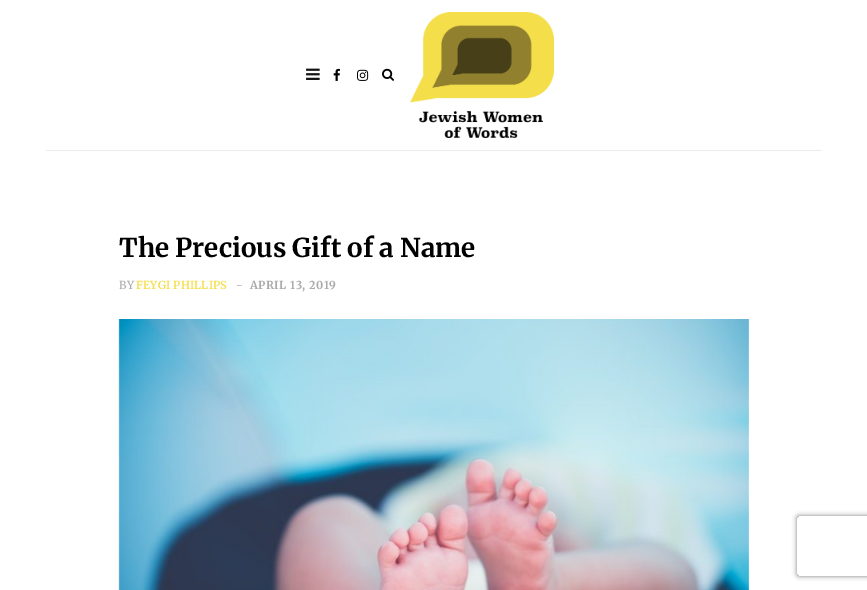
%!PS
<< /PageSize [867 590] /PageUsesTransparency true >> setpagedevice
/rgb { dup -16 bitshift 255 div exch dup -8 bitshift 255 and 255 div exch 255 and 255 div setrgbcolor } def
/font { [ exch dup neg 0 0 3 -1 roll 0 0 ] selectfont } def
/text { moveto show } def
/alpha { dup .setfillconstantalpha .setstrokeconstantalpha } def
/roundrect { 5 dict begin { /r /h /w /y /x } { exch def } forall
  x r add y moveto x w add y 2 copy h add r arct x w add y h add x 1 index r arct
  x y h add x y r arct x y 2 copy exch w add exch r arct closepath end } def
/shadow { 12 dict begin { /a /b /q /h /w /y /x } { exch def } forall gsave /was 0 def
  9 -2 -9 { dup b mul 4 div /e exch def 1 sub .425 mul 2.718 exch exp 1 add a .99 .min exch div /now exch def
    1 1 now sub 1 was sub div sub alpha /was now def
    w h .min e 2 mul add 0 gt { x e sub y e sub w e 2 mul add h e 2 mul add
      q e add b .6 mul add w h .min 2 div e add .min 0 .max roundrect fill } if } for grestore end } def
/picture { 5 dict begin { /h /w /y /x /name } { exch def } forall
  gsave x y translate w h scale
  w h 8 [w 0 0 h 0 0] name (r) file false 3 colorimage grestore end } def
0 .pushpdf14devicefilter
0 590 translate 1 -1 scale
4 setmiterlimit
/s1 { /Merriweather-Bold 26 font 16#000000 rgb } def
/s2 { /Merriweather-Regular 11 font 16#AAAAAA rgb } def
16#FFFFFF rgb
0 0 867 590 rectfill
16#EBEBEB rgb
46 150 776 1 rectfill
(pic1.raw) 306 68 14 12 picture
(pic2.raw) 333 68 7 13 picture
(pic3.raw) 357 69 12 12 picture
(pic4.raw) 382 68 12 13 picture
(pic5.raw) 410 12 144 126 picture
s1
(The Precious Gift of a Name) 119 257 text
/Merriweather-Regular 11 font
16#AAAAAA rgb
119 289 moveto 0.25 0 (BY) ashow
/Merriweather-SemiBold 11 font
16#F4DE46 rgb
136 289 moveto 0.25 0 (FEYGI PHILLIPS) ashow
s2
(-) 236 289 text
/Merriweather-Bold 11 font
250 289 moveto 0.5 0 (APRIL 13, 2019) ashow
(pic6.raw) 118 319 631 271 picture
gsave
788 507 moveto 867 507 lineto 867 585 lineto 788 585 lineto closepath 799 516 moveto 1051 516 lineto 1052 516 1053 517 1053 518 curveto 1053 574 lineto 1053 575 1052 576 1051 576 curveto 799 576 lineto 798 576 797 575 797 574 curveto 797 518 lineto 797 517 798 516 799 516 curveto closepath eoclip newpath
16#808080 rgb
797 516 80 60 2 2.5 1 shadow
grestore
.poppdf14devicefilter showpage
